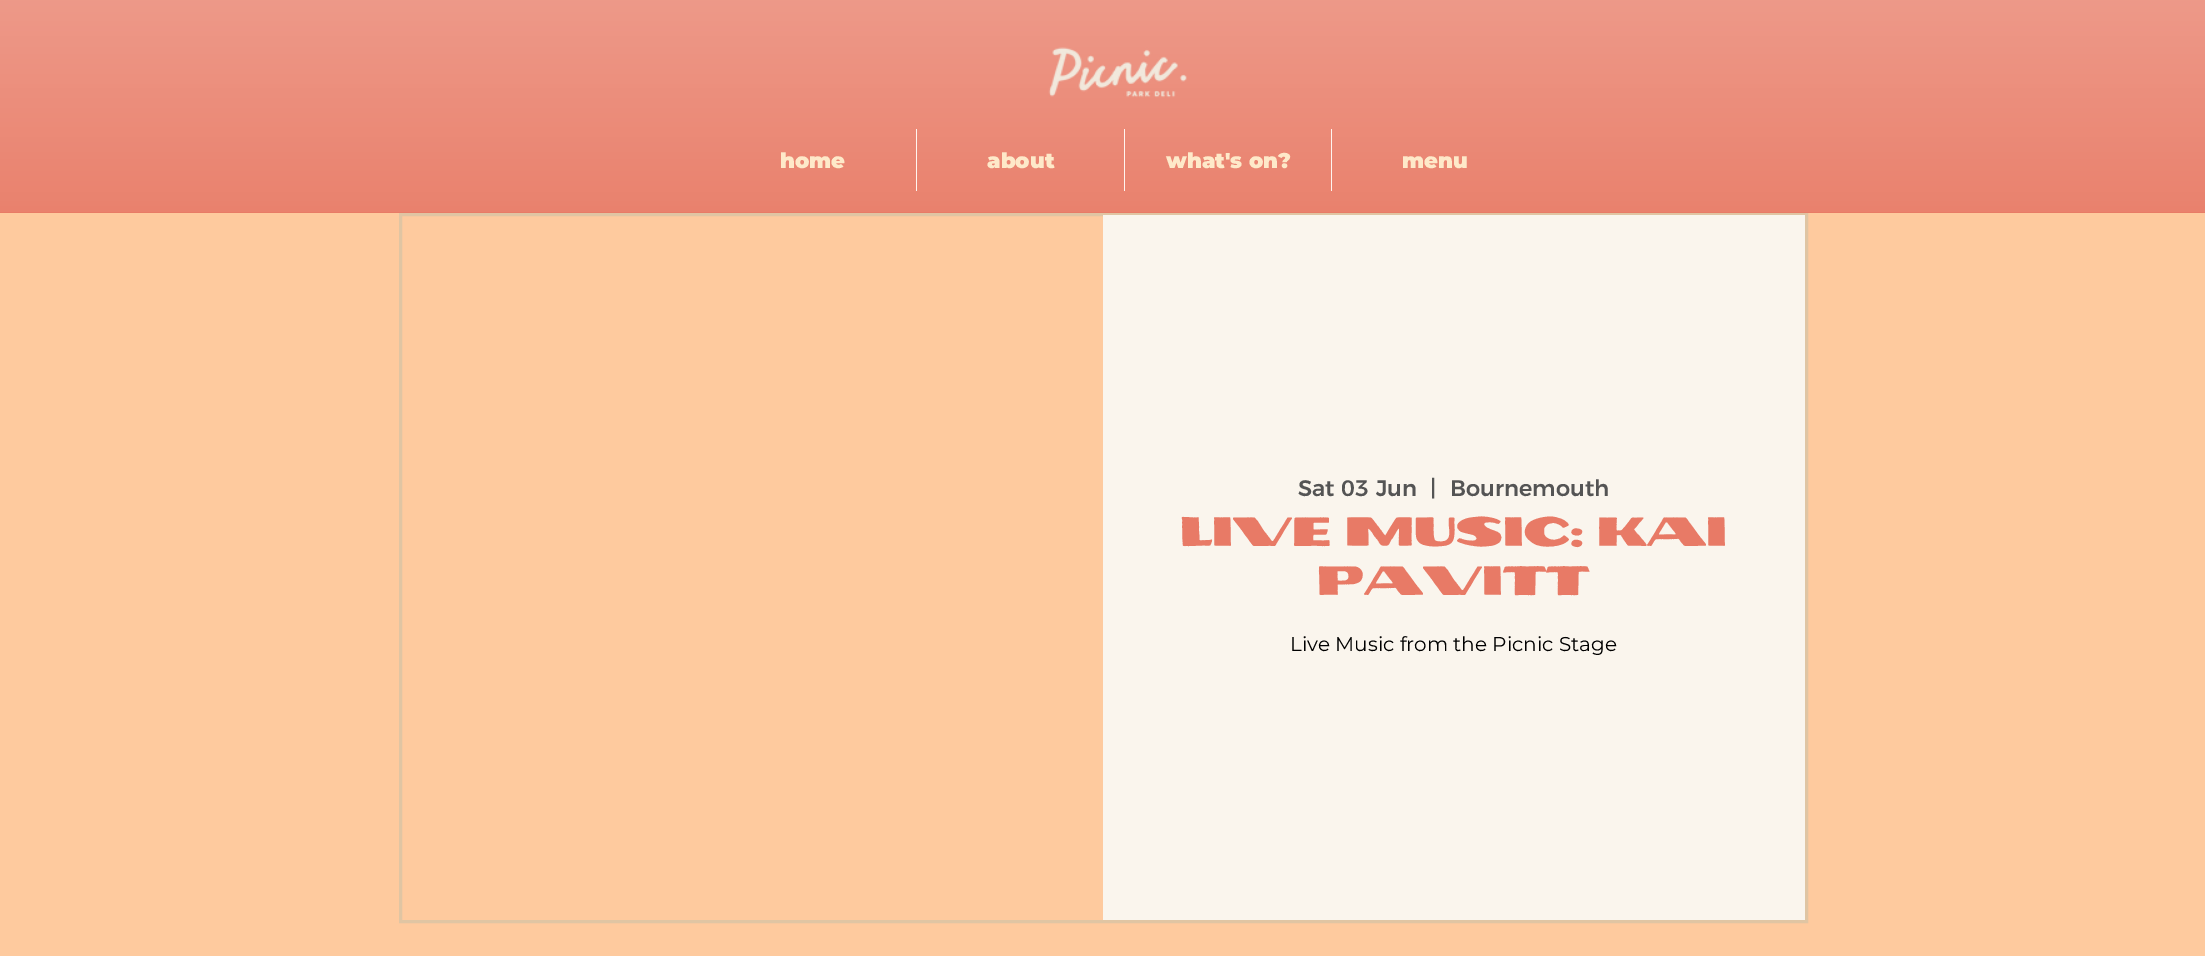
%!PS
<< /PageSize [2205 956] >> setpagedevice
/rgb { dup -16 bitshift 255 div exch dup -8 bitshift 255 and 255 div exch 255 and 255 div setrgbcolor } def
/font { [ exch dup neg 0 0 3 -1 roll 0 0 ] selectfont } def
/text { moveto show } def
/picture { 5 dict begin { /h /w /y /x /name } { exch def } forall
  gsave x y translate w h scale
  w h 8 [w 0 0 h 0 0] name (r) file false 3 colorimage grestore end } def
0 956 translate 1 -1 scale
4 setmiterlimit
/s1 { /Montserrat-Black 21.25 font 16#FEE9C9 rgb } def
/s2 { /Montserrat-Medium 22.5 font 16#545454 rgb } def
/s3 { /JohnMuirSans-Regular 41.25 font 16#E87A66 rgb } def
/s4 { /Montserrat-Regular 20 font 16#000000 rgb } def
16#FECA9E rgb
0 0 2205 956 rectfill
16#E7755F rgb
0 0 2205 213 rectfill
(pic1.raw) 0 0 2205 213 picture
(pic2.raw) 1048 47 139 51 picture
s1
(home) 780 168 text
16#FFF5F0 rgb
916 129 1 62 rectfill
s1
(about) 987 168 text
16#FFF5F0 rgb
1124 129 1 62 rectfill
s1
(what's on?) 1166 168 text
16#FFF5F0 rgb
1331 129 1 62 rectfill
s1
(menu) 1402 168 text
16#E0C5A3 rgb
3 setlinewidth
400.5 214.5 1406 707 rectstroke
16#FAF5ED rgb
1103 215 702 705 rectfill
s2
(Sat 03 Jun) 1298 496 text
(|) 1430 496 text
(Bournemouth) 1450 496 text
s3
(Live Music: Kai) 1180 546 text
(Pavitt) 1317 595 text
s4
(Live Music from the Picnic Stage) 1290 651 text
showpage
